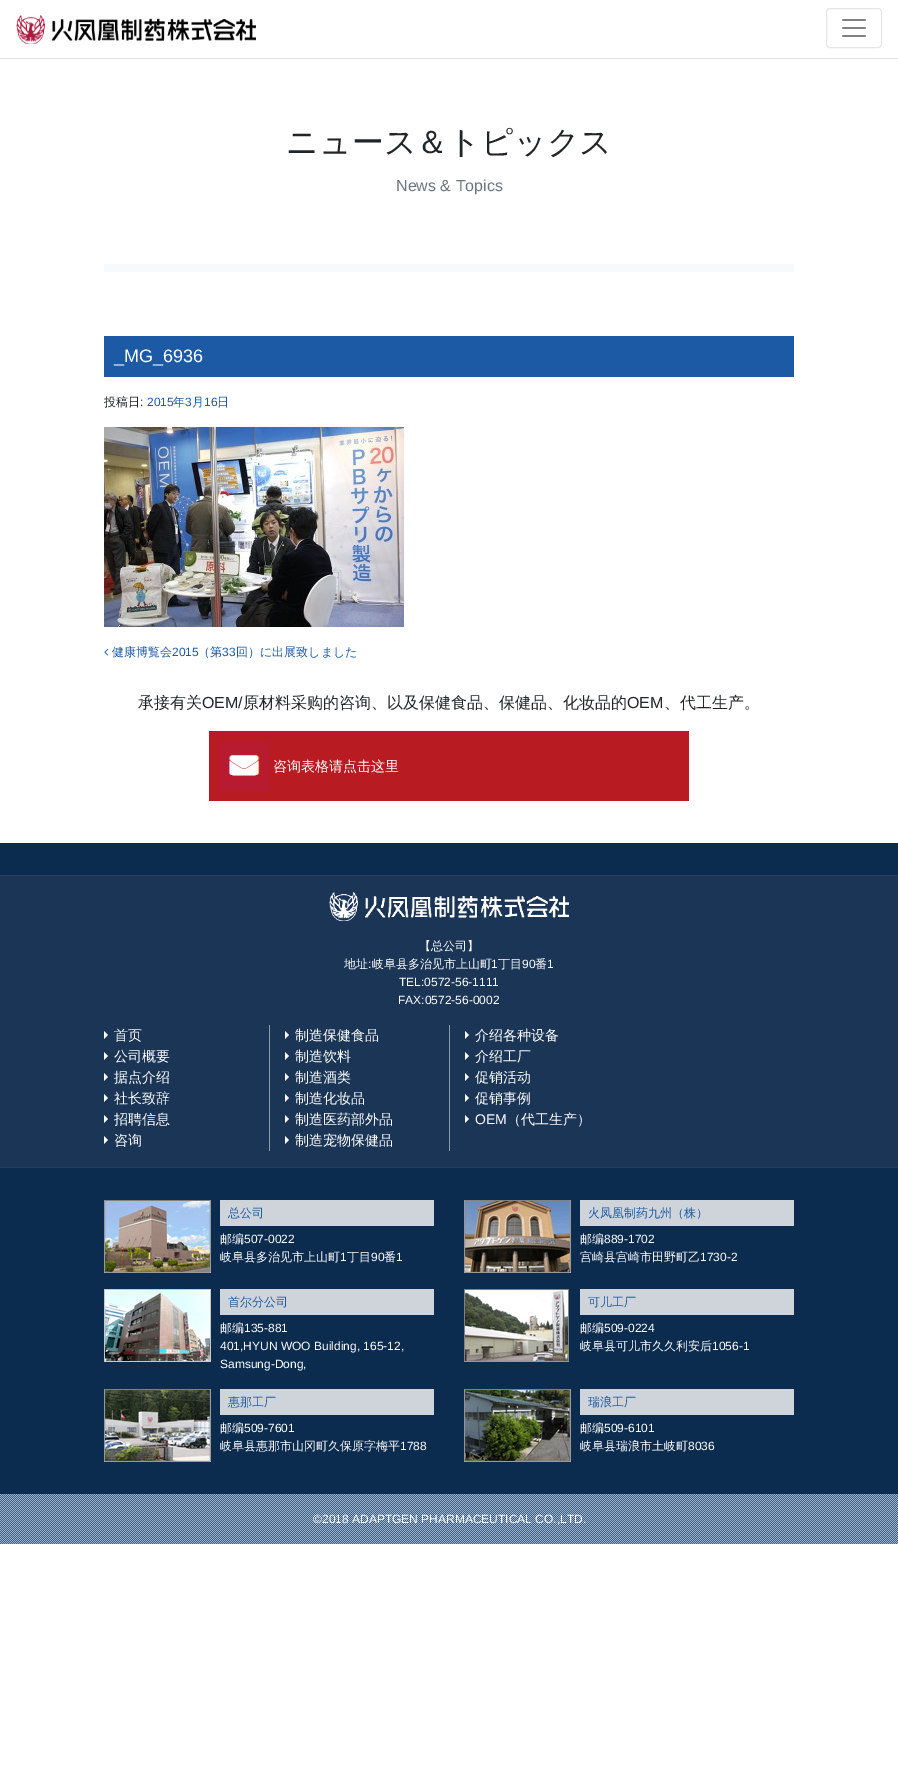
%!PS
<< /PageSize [898 1773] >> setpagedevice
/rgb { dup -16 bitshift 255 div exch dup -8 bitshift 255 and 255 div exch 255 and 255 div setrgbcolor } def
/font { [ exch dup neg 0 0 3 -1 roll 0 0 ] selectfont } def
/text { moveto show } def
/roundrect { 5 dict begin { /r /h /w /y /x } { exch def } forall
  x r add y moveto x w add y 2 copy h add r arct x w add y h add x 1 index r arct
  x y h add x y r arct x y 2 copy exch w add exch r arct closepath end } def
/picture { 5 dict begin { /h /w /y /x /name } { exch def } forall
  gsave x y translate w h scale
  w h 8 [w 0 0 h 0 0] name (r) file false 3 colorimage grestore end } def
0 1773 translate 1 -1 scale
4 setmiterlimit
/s1 { /WenQuanYiZenHei-Medium 32 font 16#212529 rgb } def
/s2 { /LiberationSans-Regular 16 font 16#6C757D rgb } def
/s3 { /LiberationSans-Regular 18 font 16#FFFFFF rgb } def
/s4 { /WenQuanYiZenHei-Medium 12 font 16#212529 rgb } def
/s5 { /LiberationSans-Regular 12 font 16#212529 rgb } def
/s6 { /LiberationSans-Regular 12 font 16#1C5AA5 rgb } def
/s7 { /WenQuanYiZenHei-Medium 12 font 16#1C5AA5 rgb } def
/s8 { /WenQuanYiZenHei-Medium 16 font 16#212529 rgb } def
/s9 { /LiberationSans-Regular 16 font 16#212529 rgb } def
/s10 { /WenQuanYiZenHei-Medium 14 font 16#FFFFFF rgb } def
/s11 { /WenQuanYiZenHei-Medium 12 font 16#FFFFFF rgb } def
/s12 { /LiberationSans-Regular 12 font 16#FFFFFF rgb } def
/s13 { /LiberationSans-Regular 14 font 16#FFFFFF rgb } def
16#FFFFFF rgb
0 0 898 1773 rectfill
(pic1.raw) 16 15 240 29 picture
16#E6E6E6 rgb
826.5 8.5 55 39 3.5 roundrect stroke
(pic2.raw) 842 19 24 18 picture
16#DEE2E6 rgb
0 58 898 1 rectfill
16#F8F9FA rgb
104 264 690 8 rectfill
s1
(ニュース＆トピックス) 286 153 text
s2
(News & Topics) 396 191 text
16#1C5AA5 rgb
104 336 690 41 rectfill
s3
(_MG_6936) 114 362 text
s4
(投稿日) 104 406 text
s5
(:) 140 406 text
s6
(2015) 147 406 text
s7
(年) 173 406 text
s6
(3) 185 406 text
s7
(月) 192 406 text
s6
(16) 204 406 text
s7
(日) 217 406 text
(pic3.raw) 104 427 300 200 picture
(pic4.raw) 104 648 5 8 picture
(健康博覧会) 112 656 text
s6
(2015) 172 656 text
s7
(（第) 198 656 text
s6
(33) 222 656 text
s7
(回）に出展致しました) 236 656 text
s8
(承接有关) 138 708 text
s9
(OEM/) 202 708 text
s8
(原材料采购的咨询、以及保健食品、保健品、化妆品的) 243 708 text
s9
(OEM) 627 708 text
s8
(、代工生产。) 664 708 text
16#B81B22 rgb
209 731 480 70 rectfill
(pic5.raw) 219 741 50 50 picture
s10
(咨询表格请点击这里) 273 771 text
16#0B2B4F rgb
0 843 898 651 rectfill
16#1A3556 rgb
0 876 898 291 rectfill
16#273F5A rgb
0 875 898 1 rectfill
0 1167 898 1 rectfill
(pic6.raw) 329 892 240 29 picture
s11
(【总公司】) 419 950 text
(地址 岐阜县多治见市上山町) 344 968 text
s12
(1) 491 968 text
s11
(丁目) 498 968 text
s12
(90) 522 968 text
s11
(番) 535 968 text
s12
(1) 547 968 text
(:) 368 968 text
(TEL:0572-56-1111) 399 986 text
(FAX:0572-56-0002) 398 1004 text
104 1039 moveto 104 1031 lineto 108 1035 lineto closepath fill
s10
(首页) 114 1040 text
104 1060 moveto 104 1052 lineto 108 1056 lineto closepath fill
(公司概要) 114 1061 text
104 1081 moveto 104 1073 lineto 108 1077 lineto closepath fill
(据点介绍) 114 1082 text
104 1102 moveto 104 1094 lineto 108 1098 lineto closepath fill
(社长致辞) 114 1103 text
104 1123 moveto 104 1115 lineto 108 1119 lineto closepath fill
(招聘信息) 114 1124 text
104 1144 moveto 104 1136 lineto 108 1140 lineto closepath fill
(咨询) 114 1145 text
16#8D9AAB rgb
269 1025 1 126 rectfill
16#FFFFFF rgb
285 1039 moveto 285 1031 lineto 289 1035 lineto closepath fill
(制造保健食品) 295 1040 text
285 1060 moveto 285 1052 lineto 289 1056 lineto closepath fill
(制造饮料) 295 1061 text
285 1081 moveto 285 1073 lineto 289 1077 lineto closepath fill
(制造酒类) 295 1082 text
285 1102 moveto 285 1094 lineto 289 1098 lineto closepath fill
(制造化妆品) 295 1103 text
285 1123 moveto 285 1115 lineto 289 1119 lineto closepath fill
(制造医药部外品) 295 1124 text
285 1144 moveto 285 1136 lineto 289 1140 lineto closepath fill
(制造宠物保健品) 295 1145 text
16#8D9AAB rgb
449 1025 1 126 rectfill
16#FFFFFF rgb
465 1039 moveto 465 1031 lineto 469 1035 lineto closepath fill
(介绍各种设备) 475 1040 text
465 1060 moveto 465 1052 lineto 469 1056 lineto closepath fill
(介绍工厂) 475 1061 text
465 1081 moveto 465 1073 lineto 469 1077 lineto closepath fill
(促销活动) 475 1082 text
465 1102 moveto 465 1094 lineto 469 1098 lineto closepath fill
(促销事例) 475 1103 text
465 1123 moveto 465 1115 lineto 469 1119 lineto closepath fill
s13
(OEM) 475 1124 text
s10
(（代工生产）) 507 1124 text
(pic7.raw) 104 1200 107 73 picture
16#CED4DA rgb
220 1200 214 26 rectfill
s7
(总公司) 228 1217 text
s11
(邮编) 220 1243 text
s12
(507-0022) 244 1243 text
s11
(岐阜县多治见市上山町) 220 1261 text
s12
(1) 340 1261 text
s11
(丁目) 347 1261 text
s12
(90) 371 1261 text
s11
(番) 384 1261 text
s12
(1) 396 1261 text
(pic8.raw) 464 1200 107 73 picture
16#CED4DA rgb
580 1200 214 26 rectfill
s7
(火凤凰制药九州（株）) 588 1217 text
s11
(邮编) 580 1243 text
s12
(889-1702) 604 1243 text
s11
(宫崎县宫崎市田野町乙) 580 1261 text
s12
(1730-2) 700 1261 text
(pic9.raw) 104 1289 107 73 picture
16#CED4DA rgb
220 1289 214 26 rectfill
s7
(首尔分公司) 228 1306 text
s11
(邮编) 220 1332 text
s12
(135-881) 244 1332 text
(401,HYUN WOO Building, 165-12,) 220 1350 text
(Samsung-Dong,) 220 1368 text
(pic10.raw) 464 1289 105 73 picture
16#CED4DA rgb
580 1289 214 26 rectfill
s7
(可儿工厂) 588 1306 text
s11
(邮编) 580 1332 text
s12
(509-0224) 604 1332 text
s11
(岐阜县可儿市久久利安后) 580 1350 text
s12
(1056-1) 712 1350 text
(pic11.raw) 104 1389 107 73 picture
16#CED4DA rgb
220 1389 214 26 rectfill
s7
(惠那工厂) 228 1406 text
s11
(邮编) 220 1432 text
s12
(509-7601) 244 1432 text
s11
(岐阜县惠那市山冈町久保原字梅平) 220 1450 text
s12
(1788) 400 1450 text
(pic12.raw) 464 1389 107 73 picture
16#CED4DA rgb
580 1389 214 26 rectfill
s7
(瑞浪工厂) 588 1406 text
s11
(邮编) 580 1432 text
s12
(509-6101) 604 1432 text
s11
(岐阜县瑞浪市土岐町) 580 1450 text
s12
(8036) 688 1450 text
(pic13.raw) 0 1494 898 50 picture
(©2018 ADAPTGEN PHARMACEUTICAL CO.,LTD.) 313 1523 text
showpage
